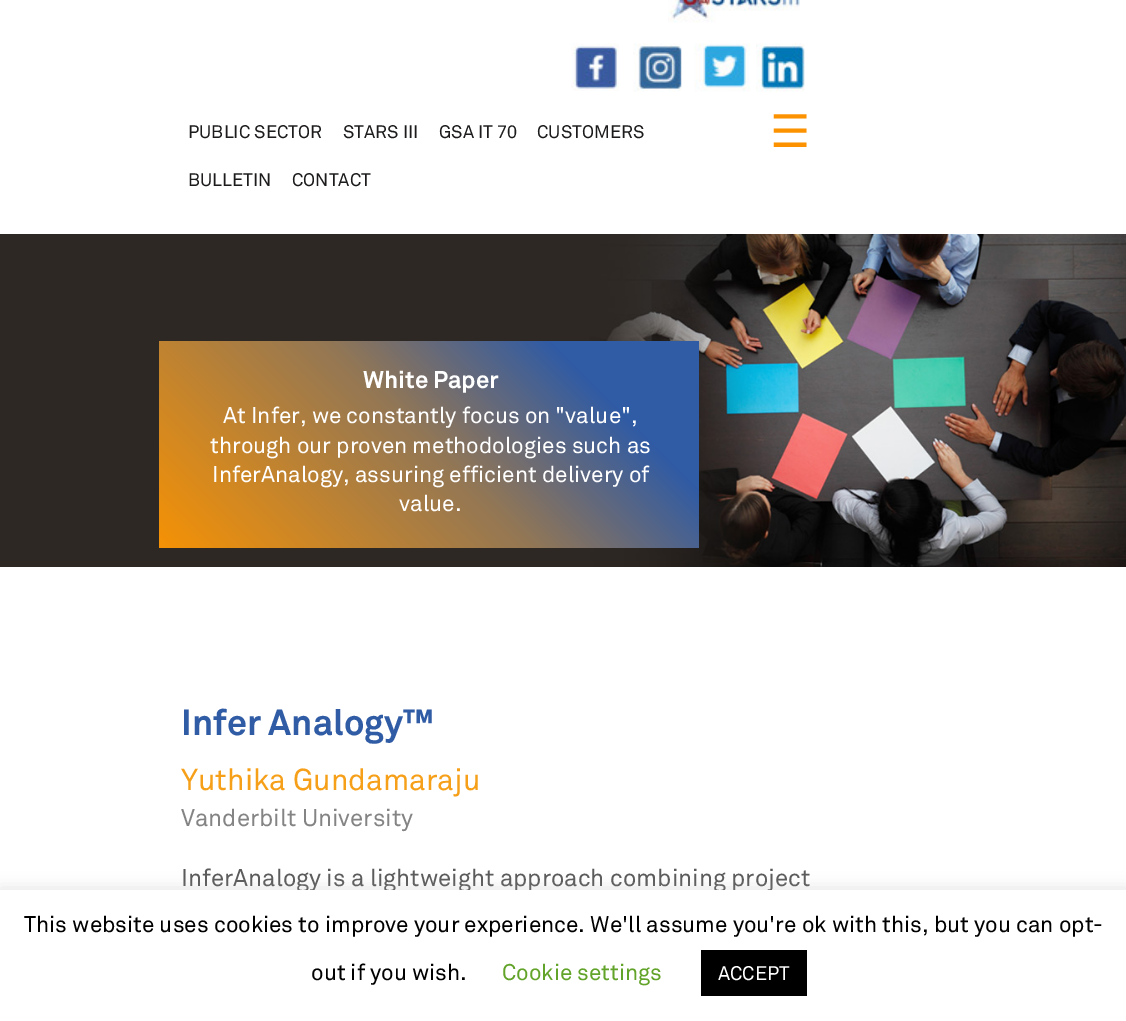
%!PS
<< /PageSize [1126 1021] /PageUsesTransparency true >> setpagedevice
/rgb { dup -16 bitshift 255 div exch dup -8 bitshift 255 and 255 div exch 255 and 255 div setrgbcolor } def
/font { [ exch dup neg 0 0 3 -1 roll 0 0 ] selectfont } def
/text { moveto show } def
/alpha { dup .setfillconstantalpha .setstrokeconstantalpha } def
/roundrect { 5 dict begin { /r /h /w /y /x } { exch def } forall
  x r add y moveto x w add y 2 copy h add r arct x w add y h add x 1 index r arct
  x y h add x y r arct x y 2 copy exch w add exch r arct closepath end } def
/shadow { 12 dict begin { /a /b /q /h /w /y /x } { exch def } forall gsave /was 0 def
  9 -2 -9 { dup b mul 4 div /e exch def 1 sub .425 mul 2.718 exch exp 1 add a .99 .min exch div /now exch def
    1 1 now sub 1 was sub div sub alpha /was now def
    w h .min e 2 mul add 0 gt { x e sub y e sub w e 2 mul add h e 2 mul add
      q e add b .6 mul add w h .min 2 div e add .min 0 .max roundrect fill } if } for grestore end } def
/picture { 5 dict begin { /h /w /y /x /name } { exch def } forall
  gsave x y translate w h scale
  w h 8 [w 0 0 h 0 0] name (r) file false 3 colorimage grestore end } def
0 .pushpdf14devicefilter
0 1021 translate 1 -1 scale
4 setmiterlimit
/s1 { /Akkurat-Regular 18 font 16#1D1B1B rgb } def
/s2 { /DejaVuSans-Regular 45 font 16#FC9200 rgb } def
/s3 { /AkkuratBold-Bold 24 font 16#FFFFFF rgb } def
/s4 { /Akkurat-Regular 22.5 font 16#FFFFFF rgb } def
/s5 { /AkkuratBold-Bold 36 font 16#305BA5 rgb } def
/s6 { /Akkurat-Regular 30 font 16#F6A01A rgb } def
/s7 { /Akkurat-Regular 24 font 16#848484 rgb } def
/s8 { /Akkurat-Regular 24 font 16#5A5A5A rgb } def
/s9 { /Akkurat-Regular 22.5 font 16#000000 rgb } def
/s10 { /Akkurat-Regular 22.5 font 16#62A329 rgb } def
/s11 { /Akkurat-Regular 19.5 font 16#FFFFFF rgb } def
16#FFFFFF rgb
0 0 1126 1021 rectfill
(pic1.raw) 668 0 132 23 picture
(pic2.raw) 571 43 48 48 picture
(pic3.raw) 633 43 49 49 picture
(pic4.raw) 694 43 56 49 picture
(pic5.raw) 756 43 49 49 picture
s1
(PUBLIC SECTOR) 188 138 text
(STARS III) 343 138 text
(GSA IT 70) 439 138 text
(CUSTOMERS) 537 138 text
(BULLETIN) 188 186 text
(CONTACT) 292 186 text
s2
(☰) 770 147 text
(pic6.raw) 0 234 1126 333 picture
gsave 159 341 moveto 699 341 lineto 699 548 lineto 159 548 lineto closepath clip newpath
<< /ShadingType 2 /ColorSpace /DeviceRGB /Coords [242 631 616 257] /Extend [true true] /Function << /FunctionType 3 /Domain [0 1] /Functions [<< /FunctionType 2 /Domain [0 1] /C0 [0.965 0.573 0.02] /C1 [0.576 0.467 0.333] /N 1 >> << /FunctionType 2 /Domain [0 1] /C0 [0.576 0.467 0.333] /C1 [0.188 0.357 0.647] /N 1 >> << /FunctionType 2 /Domain [0 1] /C0 [0.188 0.357 0.647] /C1 [0.188 0.357 0.647] /N 1 >>] /Bounds [0.5 0.8] /Encode [0 1 0 1 0 1] >> >> shfill grestore
s3
(White Paper) 363 388 text
s4
(At Infer, we constantly focus on "value",) 223 423 text
(through our proven methodologies such as) 210 453 text
(InferAnalogy, assuring efficient delivery of) 212 482 text
(value.) 399 511 text
s5
(Infer Analogy™) 181 735 text
s6
(Yuthika Gundamaraju) 181 790 text
s7
(Vanderbilt University) 181 826 text
s8
(InferAnalogy is a lightweight approach combining project) 181 886 text
16#ACABAB rgb
0 888 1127 132 0 7.5 0.3 shadow
16#FFFFFF rgb
0 890 1126 131 rectfill
s9
(This website uses cookies to improve your experience. We'll assume you're ok with this, but you can opt-) 24 932 text
(out if you wish.) 311 980 text
s10
(Cookie settings) 502 980 text
16#000000 rgb
701 950 106 46 rectfill
s11
(ACCEPT) 718 980 text
.poppdf14devicefilter showpage
